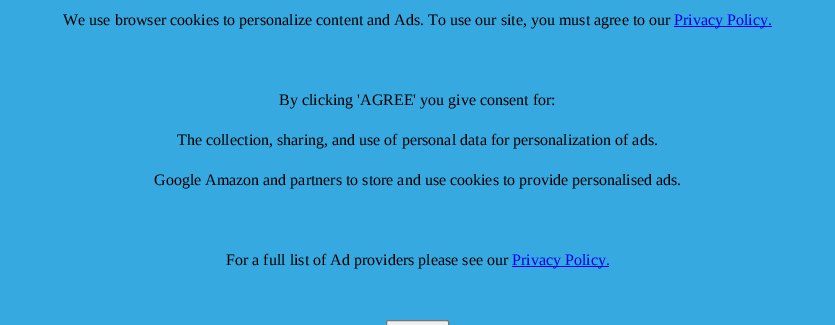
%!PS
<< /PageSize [835 325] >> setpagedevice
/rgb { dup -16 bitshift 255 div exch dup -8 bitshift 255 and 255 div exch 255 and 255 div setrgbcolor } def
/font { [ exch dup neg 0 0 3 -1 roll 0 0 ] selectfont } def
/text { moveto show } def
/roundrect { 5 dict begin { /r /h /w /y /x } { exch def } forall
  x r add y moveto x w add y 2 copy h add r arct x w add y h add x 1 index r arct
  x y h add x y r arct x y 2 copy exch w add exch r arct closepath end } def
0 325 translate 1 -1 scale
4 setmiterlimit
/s1 { /LiberationSerif-Regular 16 font 16#000000 rgb } def
/s2 { /LiberationSerif-Regular 16 font 16#0000EE rgb } def
16#37A9E1 rgb
0 0 835 325 rectfill
s1
(We use browser cookies to personalize content and Ads. To use our site, you must agree to our) 63 25 text
16#0000EE rgb
674 26 98 1 rectfill
(Privacy Policy.) 674 25 text
s1
(By clicking 'AGREE' you give consent for:) 279 105 text
(The collection, sharing, and use of personal data for personalization of ads.) 177 145 text
(Google Amazon and partners to store and use cookies to provide personalised ads.) 154 185 text
(For a full list of Ad providers please see our) 226 265 text
16#0000EE rgb
512 266 97 1 rectfill
(Privacy Policy.) 512 265 text
16#EFEFEF rgb
386.5 320.5 62 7 1.5 roundrect gsave fill grestore
16#767676 rgb
stroke
showpage
